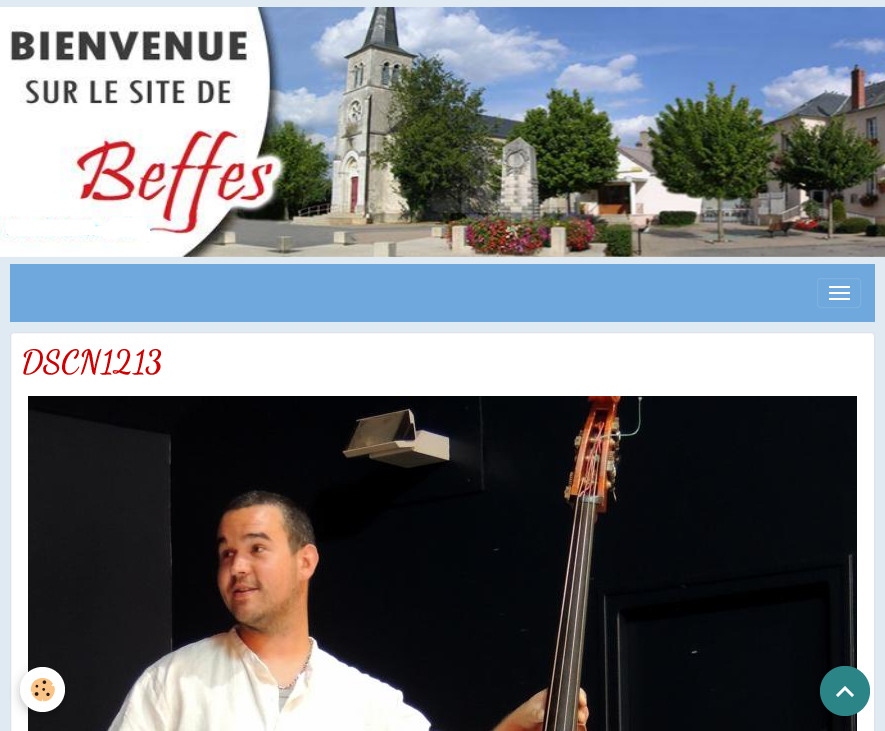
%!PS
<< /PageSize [885 731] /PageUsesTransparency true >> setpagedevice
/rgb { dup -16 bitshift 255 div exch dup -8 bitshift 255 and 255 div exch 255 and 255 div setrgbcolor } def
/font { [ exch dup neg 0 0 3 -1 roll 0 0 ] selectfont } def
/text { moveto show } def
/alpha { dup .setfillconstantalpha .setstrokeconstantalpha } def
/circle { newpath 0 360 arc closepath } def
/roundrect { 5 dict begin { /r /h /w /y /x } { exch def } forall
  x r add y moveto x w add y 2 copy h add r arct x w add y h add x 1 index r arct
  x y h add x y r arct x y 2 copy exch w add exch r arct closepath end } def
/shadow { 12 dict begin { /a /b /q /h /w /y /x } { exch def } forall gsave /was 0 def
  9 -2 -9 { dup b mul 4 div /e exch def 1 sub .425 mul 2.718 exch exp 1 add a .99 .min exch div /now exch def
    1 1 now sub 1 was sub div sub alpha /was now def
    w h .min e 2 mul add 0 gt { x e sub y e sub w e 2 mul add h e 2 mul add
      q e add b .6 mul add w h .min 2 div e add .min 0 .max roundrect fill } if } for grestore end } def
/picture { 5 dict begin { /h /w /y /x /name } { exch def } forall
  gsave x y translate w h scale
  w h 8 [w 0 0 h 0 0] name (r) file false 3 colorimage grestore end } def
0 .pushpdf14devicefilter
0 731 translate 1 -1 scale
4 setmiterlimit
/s1 { /DancingScript-Bold 32 font 16#CC0000 rgb } def
16#DFEAF2 rgb
0 0 885 731 rectfill
(pic1.raw) 0 7 885 250 picture
16#6FA8DC rgb
10 264 865 58 rectfill
16#7DB1E0 rgb
817.5 278.5 43 29 3.5 roundrect stroke
16#FFFFFF rgb
829 286 21 2 1 roundrect fill
829 292 21 2 1 roundrect fill
829 298 21 2 1 roundrect fill
10.5 332.5 864 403 3.5 roundrect gsave fill grestore
16#E0E2EB rgb
stroke
s1
(DSCN1213) 21 372 text
(pic2.raw) 28 396 829 335 picture
16#000000 rgb
20 670 45 45 22.5 5 0.24 shadow
16#FFFFFF rgb
42.5 689.5 22.5 circle fill
(pic3.raw) 30 677 25 25 picture
16#2B8587 rgb
845 691 25 circle fill
16#FFFFFF rgb
845 686 moveto 854 695 lineto 852 697 lineto 845 690 lineto 838 697 lineto 836 695 lineto closepath fill
.poppdf14devicefilter showpage
